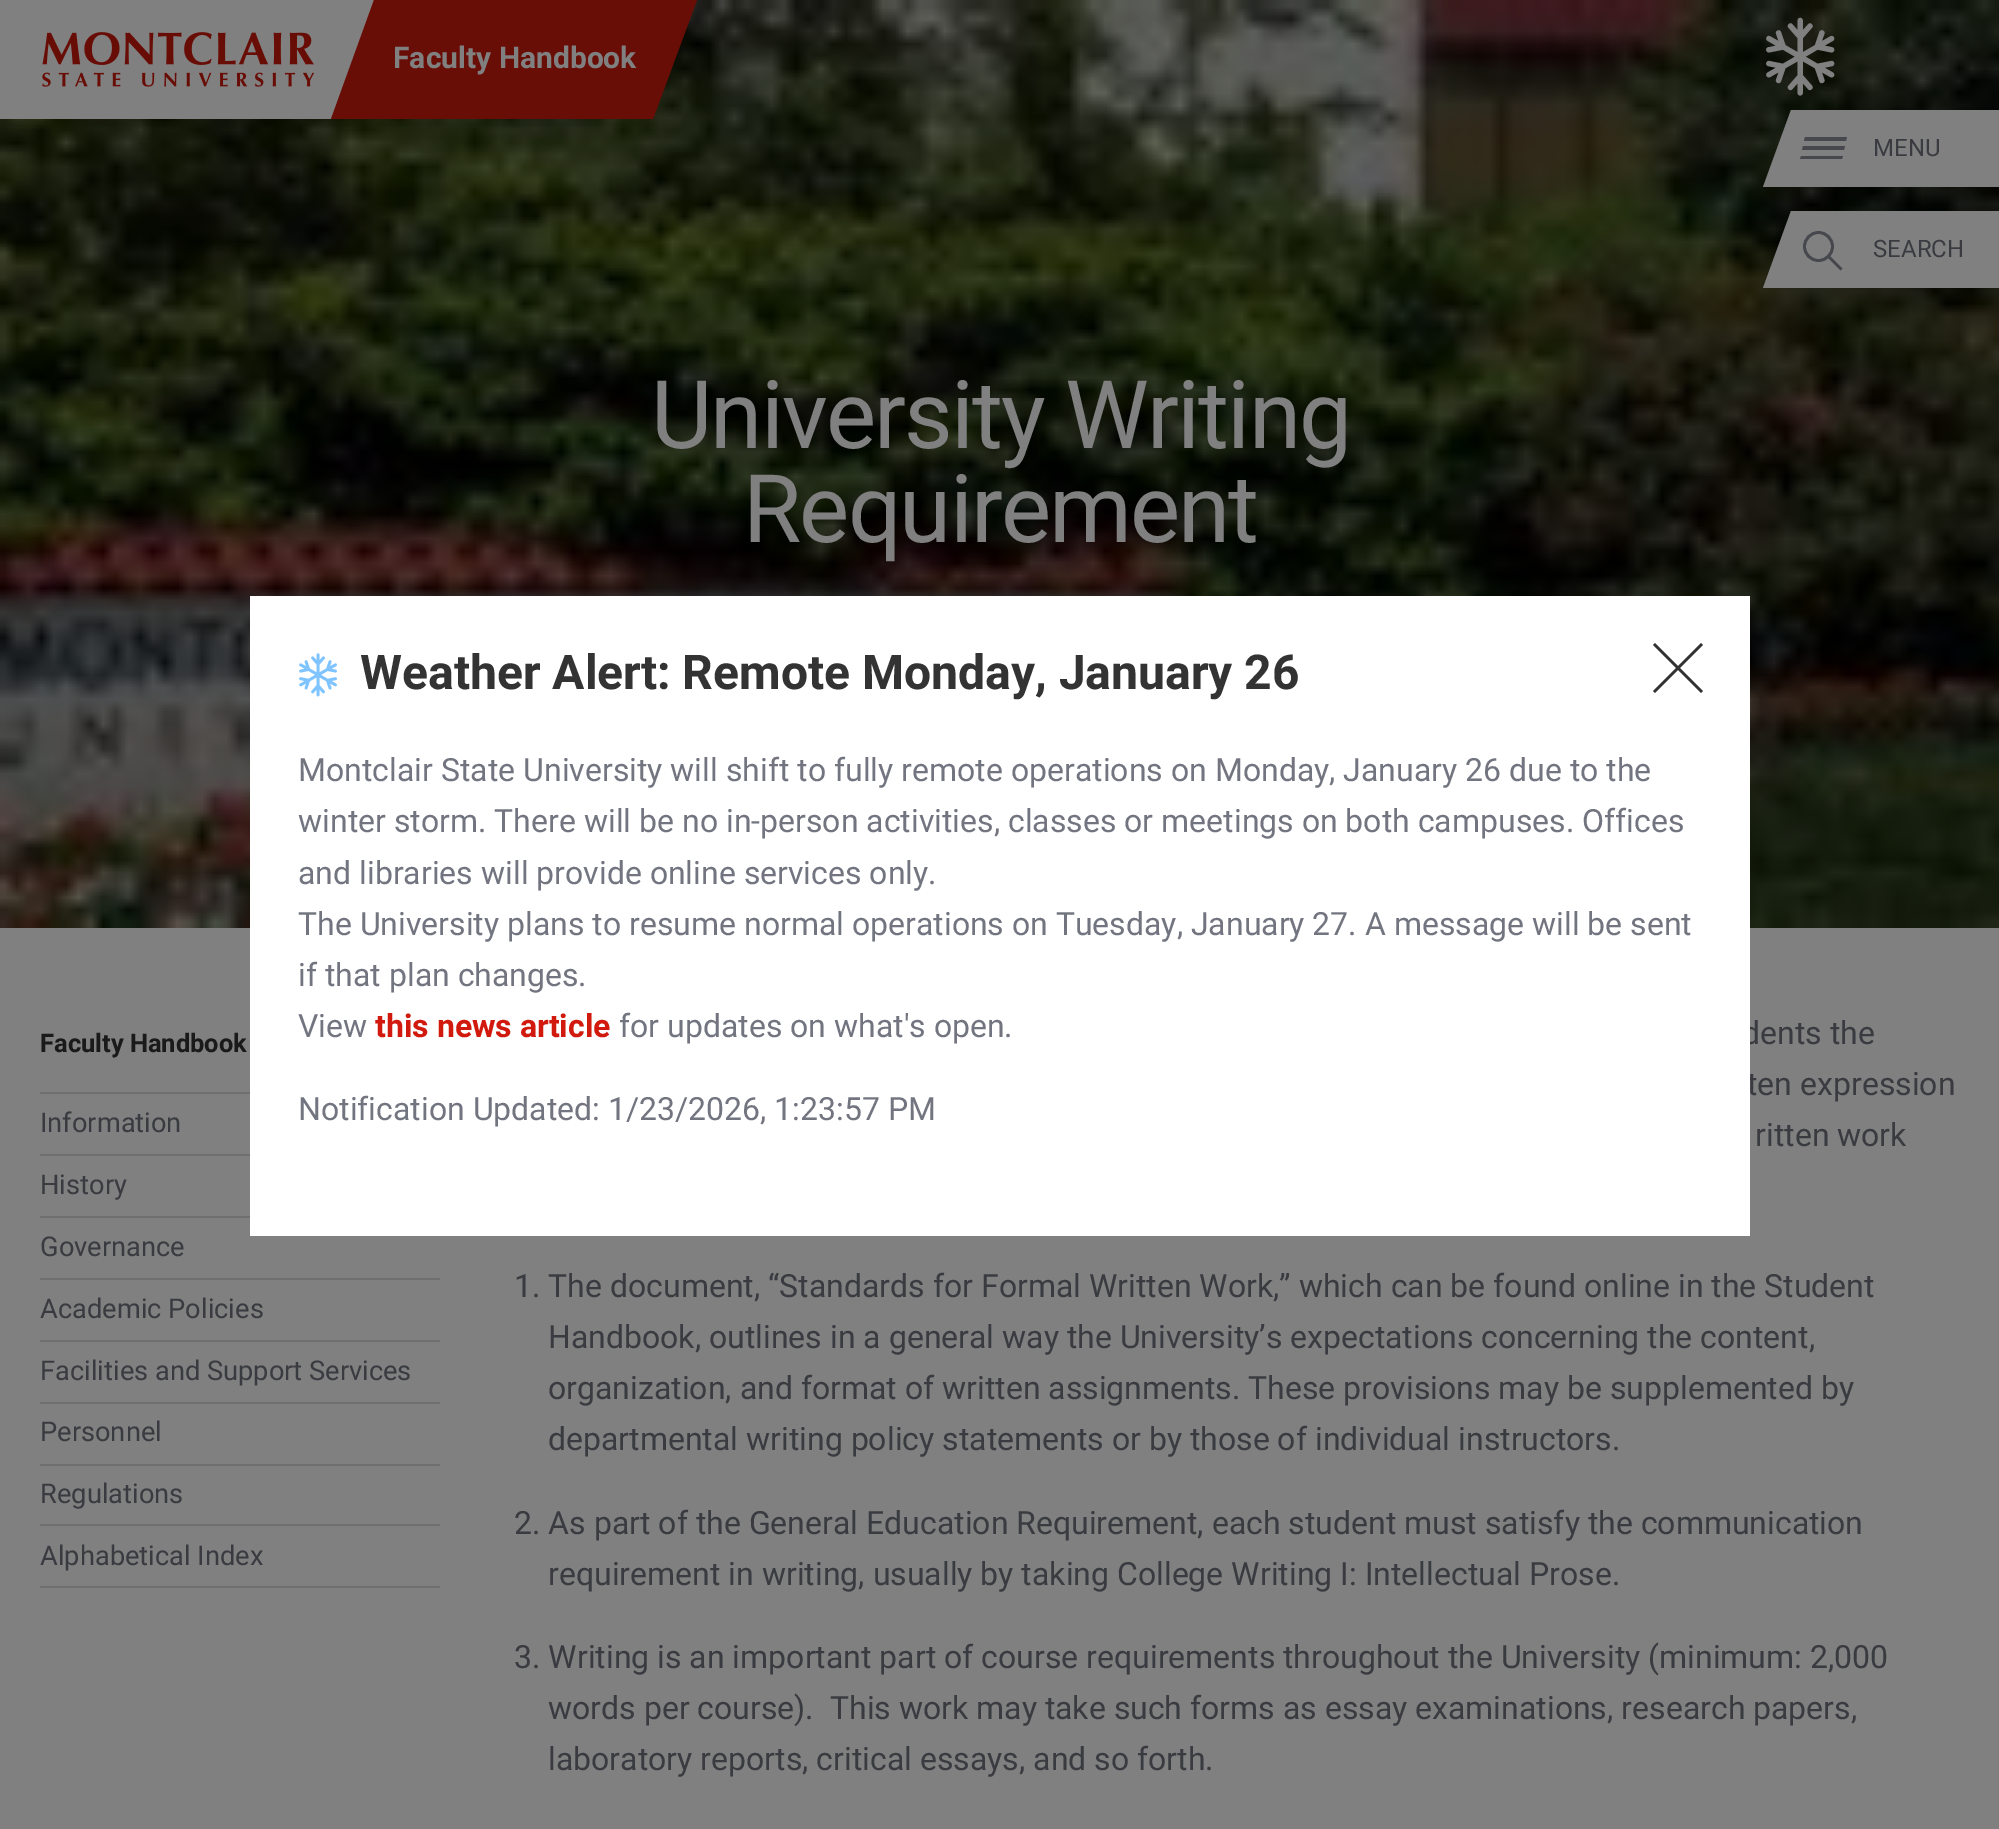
%!PS
<< /PageSize [1999 1829] /PageUsesTransparency true >> setpagedevice
/rgb { dup -16 bitshift 255 div exch dup -8 bitshift 255 and 255 div exch 255 and 255 div setrgbcolor } def
/font { [ exch dup neg 0 0 3 -1 roll 0 0 ] selectfont } def
/text { moveto show } def
/alpha { dup .setfillconstantalpha .setstrokeconstantalpha } def
/circle { newpath 0 360 arc closepath } def
/roundrect { 5 dict begin { /r /h /w /y /x } { exch def } forall
  x r add y moveto x w add y 2 copy h add r arct x w add y h add x 1 index r arct
  x y h add x y r arct x y 2 copy exch w add exch r arct closepath end } def
/shadow { 12 dict begin { /a /b /q /h /w /y /x } { exch def } forall gsave /was 0 def
  9 -2 -9 { dup b mul 4 div /e exch def 1 sub .425 mul 2.718 exch exp 1 add a .99 .min exch div /now exch def
    1 1 now sub 1 was sub div sub alpha /was now def
    w h .min e 2 mul add 0 gt { x e sub y e sub w e 2 mul add h e 2 mul add
      q e add b .6 mul add w h .min 2 div e add .min 0 .max roundrect fill } if } for grestore end } def
/picture { 5 dict begin { /h /w /y /x /name } { exch def } forall
  gsave x y translate w h scale
  w h 8 [w 0 0 h 0 0] name (r) file false 3 colorimage grestore end } def
0 .pushpdf14devicefilter
0 1829 translate 1 -1 scale
4 setmiterlimit
/s1 { /Roboto-Bold 30 font 16#808080 rgb } def
/s2 { /Roboto-Regular 24 font 16#393B40 rgb } def
/s3 { /Roboto-Bold 25.5 font 16#1A1A1A rgb } def
/s4 { /Roboto-Regular 27.25 font 16#393B40 rgb } def
/s5 { /Roboto-Regular 32 font 16#393B40 rgb } def
/s6 { /Roboto-Bold 48 font 16#333333 rgb } def
/s7 { /Roboto-Regular 32 font 16#727580 rgb } def
/s8 { /Roboto-Bold 32 font 16#D1190D rgb } def
16#808080 rgb
0 0 1999 1829 rectfill
(pic3.raw) 0 0 1999 928 picture
16#000000 rgb
0 0 676 120 0 26 0.25 shadow
16#808080 rgb
-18 0 moveto 376 0 lineto 333 119 lineto -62 119 lineto closepath fill
(pic1.raw) 42 32 273 55 picture
16#690D07 rgb
374 0 moveto 697 0 lineto 653 119 lineto 331 119 lineto closepath fill
s1
(Faculty Handbook) 393 68 text
(pic2.raw) 1766 17 69 79 picture
1791 110 moveto 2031 110 lineto 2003 187 lineto 1763 187 lineto closepath fill
16#46484E rgb
1842 159 moveto 1800 159 lineto 1801 156 lineto 1843 156 lineto 1844 150 moveto 1802 150 lineto 1803 146 lineto 1845 146 lineto 1846 141 moveto 1804 141 lineto 1805 137 lineto 1847 137 lineto fill
s2
(MENU) 1873 156 text
16#808080 rgb
1791 211 moveto 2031 211 lineto 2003 288 lineto 1763 288 lineto closepath fill
16#46484E rgb
2.8 setlinewidth
1818.5 246.5 14 circle stroke
1841.5 269.5 moveto 1828 256 lineto stroke
s2
(SEARCH) 1873 257 text
/Roboto-Regular 94.5 font
16#808080 rgb
651 448 moveto -1.9 0 (University Writing) ashow
743 542 moveto -1.9 0 (Requirement) ashow
s3
(Faculty Handbook) 40 1052 text
16#6F6F71 rgb
40 1092 210 2 rectfill
s4
(Information) 40 1132 text
16#6F6F71 rgb
40 1154 210 2 rectfill
s4
(History) 40 1194 text
16#6F6F71 rgb
40 1216 210 2 rectfill
s4
(Governance) 40 1256 text
16#6F6F71 rgb
40 1278 400 2 rectfill
s4
(Academic Policies) 40 1318 text
16#6F6F71 rgb
40 1340 400 2 rectfill
s4
(Facilities and Support Services) 40 1380 text
16#6F6F71 rgb
40 1402 400 2 rectfill
s4
(Personnel) 40 1441 text
16#6F6F71 rgb
40 1464 400 2 rectfill
s4
(Regulations) 40 1503 text
16#6F6F71 rgb
40 1524 400 2 rectfill
40 1586 400 2 rectfill
s4
(Alphabetical Index) 40 1565 text
s5
(dents the) 1742 1044 text
(ten expression) 1747 1095 text
(ritten work) 1755 1146 text
(1. The document, “Standards for Formal Written Work,” which can be found online in the Student) 514 1297 text
(Handbook, outlines in a general way the University’s expectations concerning the content,) 548 1348 text
(organization, and format of written assignments. These provisions may be supplemented by) 548 1399 text
(departmental writing policy statements or by those of individual instructors.) 548 1450 text
(2. As part of the General Education Requirement, each student must satisfy the communication) 514 1534 text
(requirement in writing, usually by taking College Writing I: Intellectual Prose.) 548 1585 text
(3. Writing is an important part of course requirements throughout the University \(minimum: 2,000) 514 1668 text
(words per course\).  This work may take such forms as essay examinations, research papers,) 548 1719 text
(laboratory reports, critical essays, and so forth.) 548 1770 text
16#FFFFFF rgb
250 596 1500 640 rectfill
(pic4.raw) 299 653 38 44 picture
s6
(Weather Alert: Remote Monday, January 26) 360 689 text
2.7 setlinewidth
1654 692 moveto 1702 644 lineto 1702 692 moveto 1654 644 lineto stroke
s7
(Montclair State University will shift to fully remote operations on Monday, January 26 due to the) 298 781 text
(winter storm. There will be no in-person activities, classes or meetings on both campuses. Offices) 298 832 text
(and libraries will provide online services only.) 298 884 text
(The University plans to resume normal operations on Tuesday, January 27. A message will be sent) 298 935 text
(if that plan changes.) 298 986 text
(View) 298 1037 text
s8
(this news article) 375 1037 text
s7
(for updates on what's open.) 619 1037 text
(Notification Updated: 1/23/2026, 1:23:57 PM) 298 1120 text
.poppdf14devicefilter showpage
